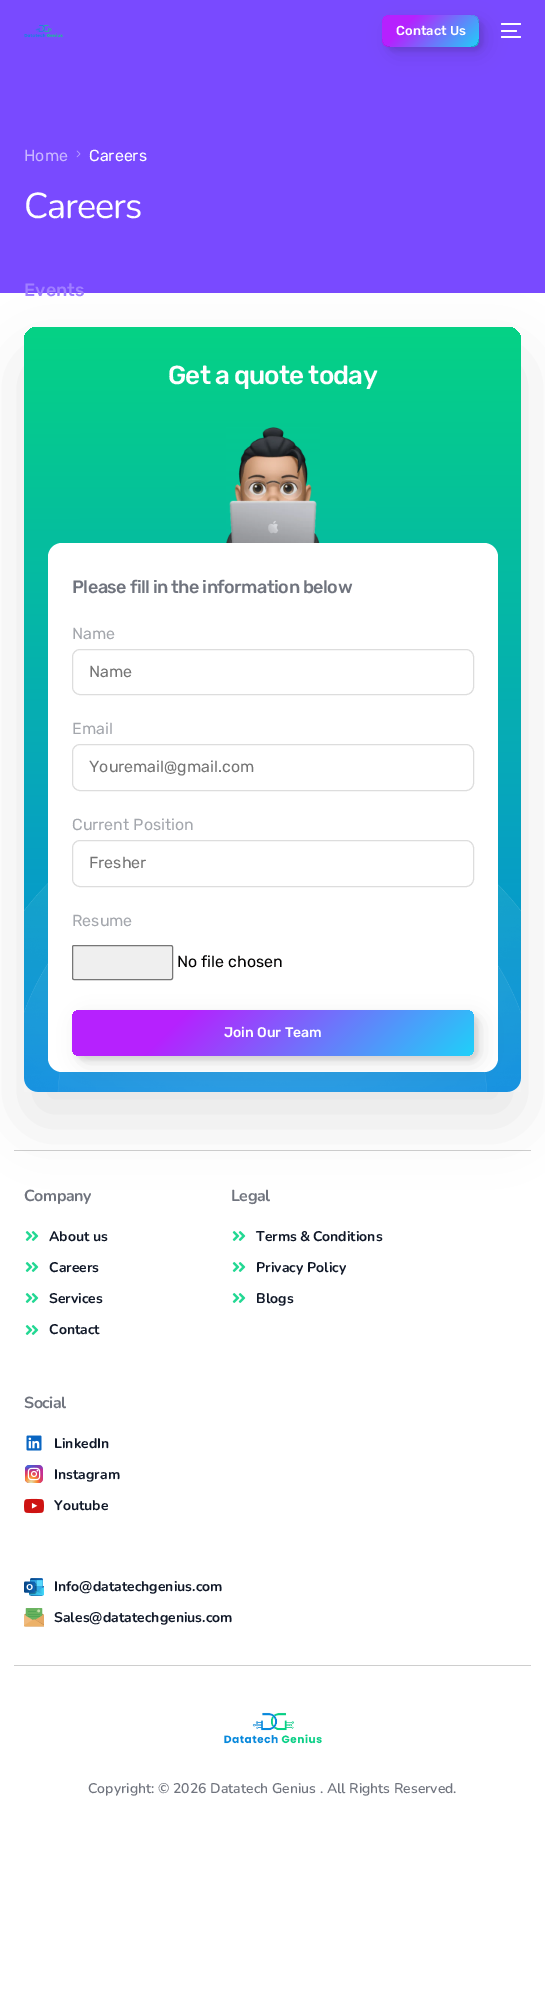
%!PS
<< /PageSize [545 2013] /PageUsesTransparency true >> setpagedevice
/rgb { dup -16 bitshift 255 div exch dup -8 bitshift 255 and 255 div exch 255 and 255 div setrgbcolor } def
/font { [ exch dup neg 0 0 3 -1 roll 0 0 ] selectfont } def
/text { moveto show } def
/alpha { dup .setfillconstantalpha .setstrokeconstantalpha } def
/roundrect { 5 dict begin { /r /h /w /y /x } { exch def } forall
  x r add y moveto x w add y 2 copy h add r arct x w add y h add x 1 index r arct
  x y h add x y r arct x y 2 copy exch w add exch r arct closepath end } def
/shadow { 12 dict begin { /a /b /q /h /w /y /x } { exch def } forall gsave /was 0 def
  9 -2 -9 { dup b mul 4 div /e exch def 1 sub .425 mul 2.718 exch exp 1 add a .99 .min exch div /now exch def
    1 1 now sub 1 was sub div sub alpha /was now def
    w h .min e 2 mul add 0 gt { x e sub y e sub w e 2 mul add h e 2 mul add
      q e add b .6 mul add w h .min 2 div e add .min 0 .max roundrect fill } if } for grestore end } def
/picture { 5 dict begin { /h /w /y /x /name } { exch def } forall
  gsave x y translate w h scale
  w h 8 [w 0 0 h 0 0] name (r) file false 3 colorimage grestore end } def
0 .pushpdf14devicefilter
0 2013 translate 1 -1 scale
4 setmiterlimit
/s1 { /Rubik-Medium 13 font 16#FFFFFF rgb } def
/s2 { /Rubik-Regular 16 font 16#C9B7FF rgb } def
/s3 { /Rubik-Regular 16 font 16#FFFFFF rgb } def
/s4 { /Rubik-Regular 16 font 16#A4A7AD rgb } def
/s5 { /Rubik-Regular 16 font 16#757575 rgb } def
/s6 { /Rubik-Regular 16 font 16#020101 rgb } def
/s7 { /Rubik-Medium 14 font 16#FFFFFF rgb } def
/s8 { /Nunito-Bold 14 font 16#101828 rgb } def
/s9 { /Nunito-SemiBold 14 font 16#70747E rgb } def
/s10 { /Rubik-Medium 18 font 16#A07FFF rgb } def
16#FFFFFF rgb
0 0 545 2013 rectfill
16#794AFF rgb
0 0 545 293 rectfill
(pic1.raw) 24 24 39 14 picture
gsave 382 15 97 32 8 roundrect clip newpath
<< /ShadingType 2 /ColorSpace /DeviceRGB /Coords [463 63 398 -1.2] /Extend [true true] /Function << /FunctionType 3 /Domain [0 1] /Functions [<< /FunctionType 2 /Domain [0 1] /C0 [0.122 0.82 0.976] /C1 [0.714 0.129 0.996] /N 1 >> << /FunctionType 2 /Domain [0 1] /C0 [0.714 0.129 0.996] /C1 [0.714 0.129 0.996] /N 1 >>] /Bounds [0.74] /Encode [0 1 0 1] >> >> shfill grestore
gsave
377 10 moveto 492 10 lineto 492 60 lineto 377 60 lineto closepath 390 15 moveto 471 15 lineto 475.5 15 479 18.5 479 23 curveto 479 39 lineto 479 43.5 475.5 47 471 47 curveto 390 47 lineto 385.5 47 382 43.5 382 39 curveto 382 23 lineto 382 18.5 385.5 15 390 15 curveto closepath eoclip newpath
16#000000 rgb
386 19 97 32 8 2.5 0.1 shadow
grestore
gsave
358 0 moveto 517 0 lineto 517 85 lineto 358 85 lineto closepath 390 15 moveto 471 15 lineto 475.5 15 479 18.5 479 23 curveto 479 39 lineto 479 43.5 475.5 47 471 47 curveto 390 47 lineto 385.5 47 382 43.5 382 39 curveto 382 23 lineto 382 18.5 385.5 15 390 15 curveto closepath eoclip newpath
16#000000 rgb
389 22 97 32 8 10 0.1 shadow
grestore
s1
(Contact Us) 396 35 text
501 23 20 2 1 roundrect fill
501 30 16 2 1 roundrect fill
501 36 20 2 1 roundrect fill
s2
(Home) 24 161 text
(pic2.raw) 76 150 5 8 picture
s3
(Careers) 89 161 text
/Nunito-Regular 36 font
24 218 moveto -1 0 (Careers) ashow
16#000000 rgb
24 357 497 765 14 30 0.1 shadow
gsave 24 327 497 765 14 roundrect clip newpath
<< /ShadingType 2 /ColorSpace /DeviceRGB /Coords [272 327 273 1092] /Extend [true true] /Function << /FunctionType 2 /Domain [0 1] /C0 [0.02 0.824 0.522] /C1 [0.024 0.541 0.871] /N 1 >> >> shfill grestore
/Rubik-Medium 26 font
16#FFFFFF rgb
168 384 moveto -0.5 0 32 -0.75 0 (Get a quote today) awidthshow
(pic3.raw) 226 427 94 116 picture
(pic4.raw) 24 883 497 209 picture
48 543 450 529 14 roundrect fill
/Rubik-Medium 18 font
16#70747E rgb
72 593 moveto -0.25 0 32 -0.5 0 (Please fill in the information below) awidthshow
s4
(Name) 72 639 text
16#DDDDDD rgb
72.5 649.5 401 45 7.5 roundrect stroke
s5
(Name) 89 677 text
s4
(Email) 72 734 text
16#DDDDDD rgb
72.5 744.5 401 46 7.5 roundrect stroke
s5
(Youremail@gmail.com) 89 772 text
s4
(Current Position) 72 830 text
16#DDDDDD rgb
72.5 840.5 401 46 7.5 roundrect stroke
s5
(Fresher) 89 868 text
s4
(Resume) 72 926 text
16#EFEFEF rgb
72.5 945.5 100 34 1.5 roundrect gsave fill grestore
16#767676 rgb
stroke
s6
(No file chosen) 177 967 text
16#000000 rgb
76 1014 402 46 8 2.5 0.1 shadow
79 1017 402 46 8 10 0.1 shadow
gsave 72 1010 402 46 8 roundrect clip newpath
<< /ShadingType 2 /ColorSpace /DeviceRGB /Coords [385 1145 161 921] /Extend [true true] /Function << /FunctionType 3 /Domain [0 1] /Functions [<< /FunctionType 2 /Domain [0 1] /C0 [0.122 0.82 0.976] /C1 [0.714 0.129 0.996] /N 1 >> << /FunctionType 2 /Domain [0 1] /C0 [0.714 0.129 0.996] /C1 [0.714 0.129 0.996] /N 1 >>] /Bounds [0.74] /Encode [0 1 0 1] >> >> shfill grestore
s7
(Join Our Team) 224 1037 text
0.38 alpha
16#7D7D7D rgb
14 1150 517 1 rectfill
1 alpha
16#CECECE rgb
14 1665 517 1 rectfill
/Nunito-Bold 16 font
16#70747E rgb
24 1201 moveto -0.5 0 (Company) ashow
(pic5.raw) 25 1231 14 10 picture
s8
(About us) 49 1241 text
(pic5.raw) 25 1262 14 10 picture
(Careers) 49 1272 text
(pic5.raw) 25 1293 14 10 picture
(Services) 49 1303 text
(pic5.raw) 25 1325 14 10 picture
(Contact) 49 1334 text
/Nunito-Bold 16 font
16#70747E rgb
231 1201 moveto -0.5 0 (Legal) ashow
(pic5.raw) 232 1231 14 10 picture
/Nunito-Bold 14 font
16#101828 rgb
256 1241 moveto -1 0 32 (Terms & Conditions) widthshow
(pic5.raw) 232 1262 14 10 picture
(Privacy Policy) 256 1272 text
(pic5.raw) 232 1293 14 10 picture
(Blogs) 256 1303 text
/Nunito-Bold 16 font
16#70747E rgb
24 1408 moveto -0.5 0 (Social) ashow
(pic6.raw) 26 1435 16 16 picture
s8
(LinkedIn) 54 1448 text
(pic7.raw) 25 1465 18 18 picture
(Instagram) 54 1479 text
(pic8.raw) 24 1498 20 16 picture
(Youtube) 54 1510 text
(pic9.raw) 24 1578 20 18 picture
(Info@datatechgenius.com) 54 1591 text
(pic10.raw) 24 1608 20 19 picture
(Sales@datatechgenius.com) 54 1622 text
(pic11.raw) 224 1712 98 32 picture
s9
(Copyright: ©) 88 1793 text
(2026 Datatech Genius . All Rights Reserved.) 173 1793 text
s10
(Events) 24 296 text
.poppdf14devicefilter showpage
